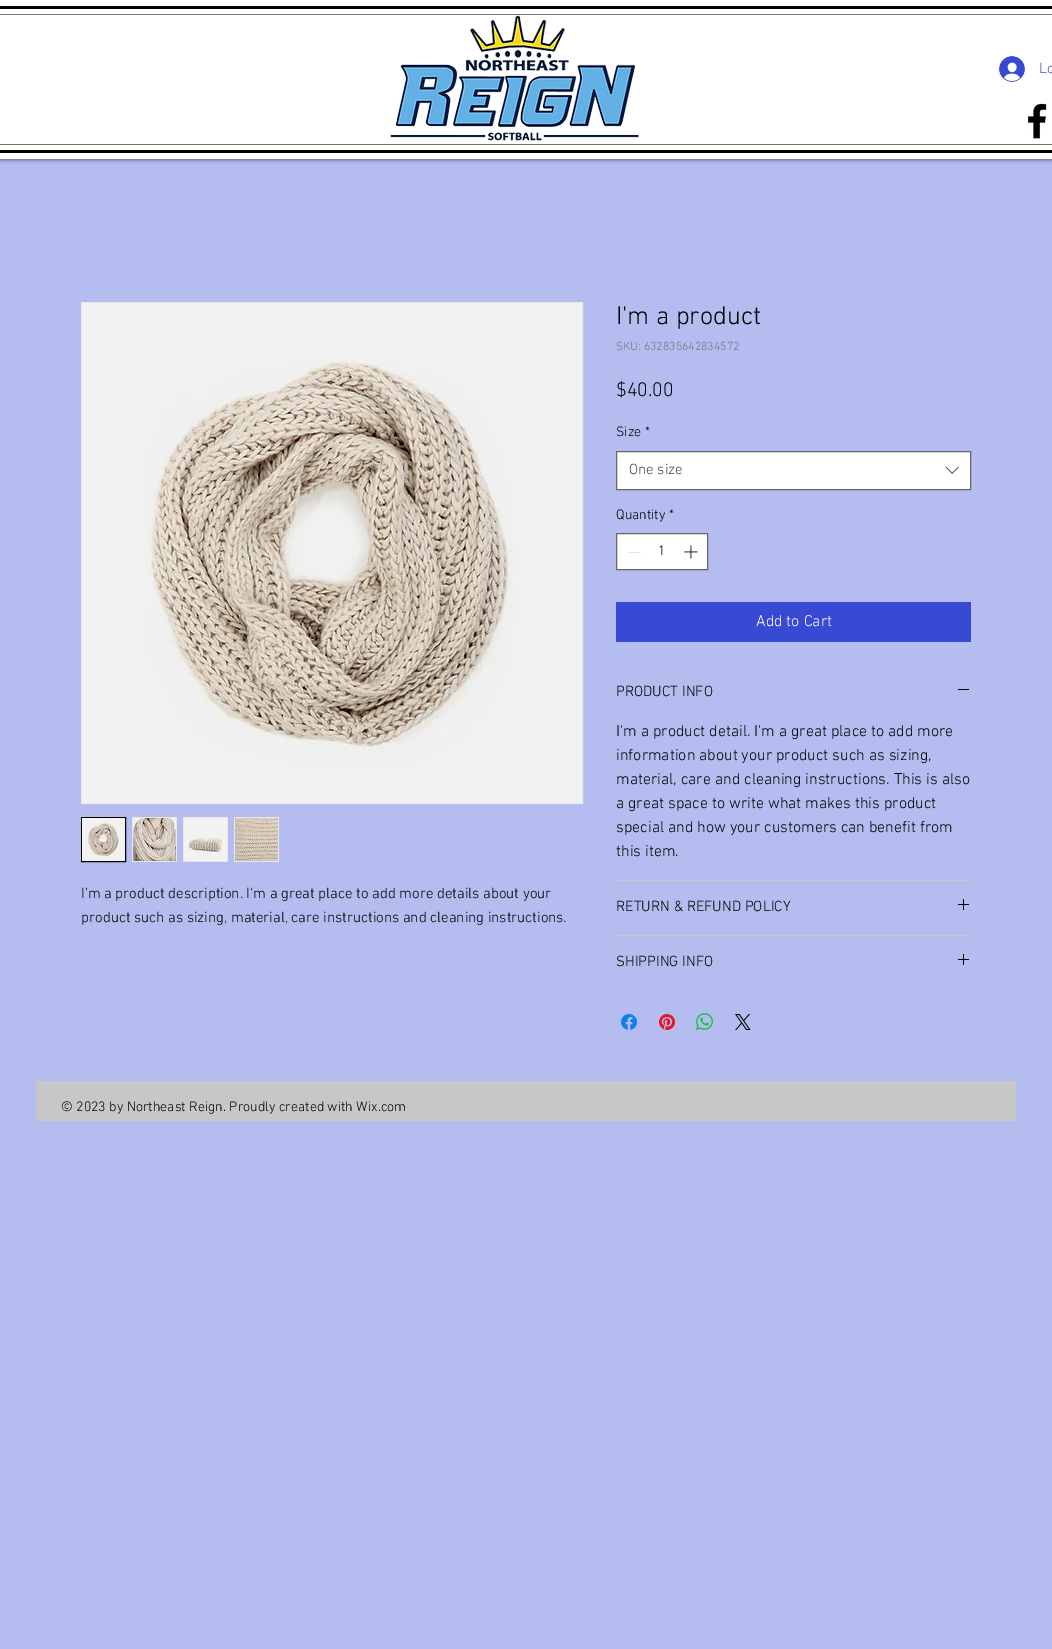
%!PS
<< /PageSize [1052 1649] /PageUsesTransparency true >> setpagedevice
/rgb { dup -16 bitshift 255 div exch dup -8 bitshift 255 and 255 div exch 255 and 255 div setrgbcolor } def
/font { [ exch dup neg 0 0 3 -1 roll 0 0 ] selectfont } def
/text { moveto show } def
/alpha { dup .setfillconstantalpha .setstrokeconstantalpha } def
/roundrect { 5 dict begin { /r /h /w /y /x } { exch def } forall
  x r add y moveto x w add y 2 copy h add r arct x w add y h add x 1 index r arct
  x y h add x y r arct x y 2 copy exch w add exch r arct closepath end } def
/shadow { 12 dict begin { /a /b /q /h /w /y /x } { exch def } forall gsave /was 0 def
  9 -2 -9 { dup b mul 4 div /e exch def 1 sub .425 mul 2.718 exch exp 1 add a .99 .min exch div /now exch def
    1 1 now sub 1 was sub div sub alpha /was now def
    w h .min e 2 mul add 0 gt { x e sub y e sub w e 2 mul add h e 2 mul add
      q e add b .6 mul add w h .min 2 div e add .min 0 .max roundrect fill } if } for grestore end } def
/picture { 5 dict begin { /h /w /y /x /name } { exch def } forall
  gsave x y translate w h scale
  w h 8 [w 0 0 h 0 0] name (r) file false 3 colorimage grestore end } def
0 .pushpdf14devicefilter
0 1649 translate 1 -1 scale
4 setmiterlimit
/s1 { /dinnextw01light-Light 15 font 16#384AD3 rgb } def
/s2 { /dinnextw01light-Light 15 font 16#000000 rgb } def
/s3 { /dinnextw01light-Light 26 font 16#000000 rgb } def
/s4 { /dinnextw01light-Light 12 font 16#767676 rgb } def
/s5 { /dinnextw01light-Light 20 font 16#000000 rgb } def
/s6 { /dinnextw01light-Light 14 font 16#000000 rgb } def
/s7 { /dinnextw01light-Light 15 font 16#444444 rgb } def
/s8 { /dinnextw01light-Light 16 font 16#FFFFFF rgb } def
/s9 { /dinnextw01light-Light 16 font 16#000000 rgb } def
16#B5BCF0 rgb
0 0 1052 1649 rectfill
16#000000 rgb
0 0 1052 159 0 2.5 0.7 shadow
16#FFFFFF rgb
0 0 1052 159 rectfill
16#000000 rgb
0 6 1052 3 rectfill
0 150 1052 3 rectfill
16#767676 rgb
0 14 1052 1 rectfill
0 144 1052 1 rectfill
(pic1.raw) 390 15 249 126 picture
(pic2.raw) 999 56 26 26 picture
s1
(Lo) 1039 73 text
(pic3.raw) 1027 103 20 36 picture
16#E8E6E6 rgb
81.5 302.5 501 501 rectstroke
(pic4.raw) 82 303 500 500 picture
16#000000 rgb
81.5 817.5 44 44 rectstroke
(pic5.raw) 82 818 43 43 picture
16#E8E6E6 rgb
132 817 45 45 rectfill
(pic6.raw) 133 818 43 43 picture
183 817 45 45 rectfill
(pic7.raw) 184 818 43 43 picture
234 817 45 45 rectfill
(pic8.raw) 235 818 43 43 picture
s2
(I'm a product description. I'm a great place to add more details about your) 81 898 text
(product such as sizing, material, care instructions and cleaning instructions.) 81 922 text
s3
(I'm a product) 616 324 text
s4
(SKU: 632835642834572) 616 350 text
s5
($40.00) 616 396 text
s6
(Size) 616 436 text
(*) 645 436 text
16#FFFFFF rgb
616.5 451.5 moveto 970.5 451.5 lineto 970.5 489.5 lineto 616.5 489.5 lineto closepath gsave fill grestore
16#666666 rgb
stroke
s7
(One size) 629 474 text
(pic9.raw) 945 466 14 8 picture
s6
(Quantity) 616 519 text
(*) 669 519 text
16#FFFFFF rgb
616.5 533.5 moveto 707.5 533.5 lineto 707.5 569.5 lineto 616.5 569.5 lineto closepath gsave fill grestore
16#666666 rgb
stroke
16#E3E3E3 rgb
628 552 13 1 rectfill
s6
(1) 658 555 text
(pic10.raw) 684 545 14 14 picture
16#384AD3 rgb
616 602 355 40 rectfill
s8
(Add to Cart) 756 626 text
16#C7C7C7 rgb
616 880 355 1 rectfill
s2
(PRODUCT INFO) 616 696 text
958 689 11 1 rectfill
s9
(I'm a product detail. I'm a great place to add more) 616 736 text
(information about your product such as sizing,) 616 760 text
(material, care and cleaning instructions. This is also) 616 784 text
(a great space to write what makes this product) 616 808 text
(special and how your customers can benefit from) 616 832 text
(this item.) 616 856 text
16#C7C7C7 rgb
616 935 355 1 rectfill
s2
(RETURN & REFUND POLICY) 616 911 text
(pic11.raw) 958 899 11 11 picture
(SHIPPING INFO) 616 966 text
(pic11.raw) 958 954 11 11 picture
(pic12.raw) 621 1014 16 16 picture
(pic13.raw) 659 1014 16 16 picture
(pic14.raw) 696 1013 17 17 picture
(pic15.raw) 735 1014 16 16 picture
16#C7C7C7 rgb
36 1081 980 40 rectfill
s6
(© 2023 by Northeast Reign. Proudly created with Wix.com) 61 1111 text
.poppdf14devicefilter showpage
